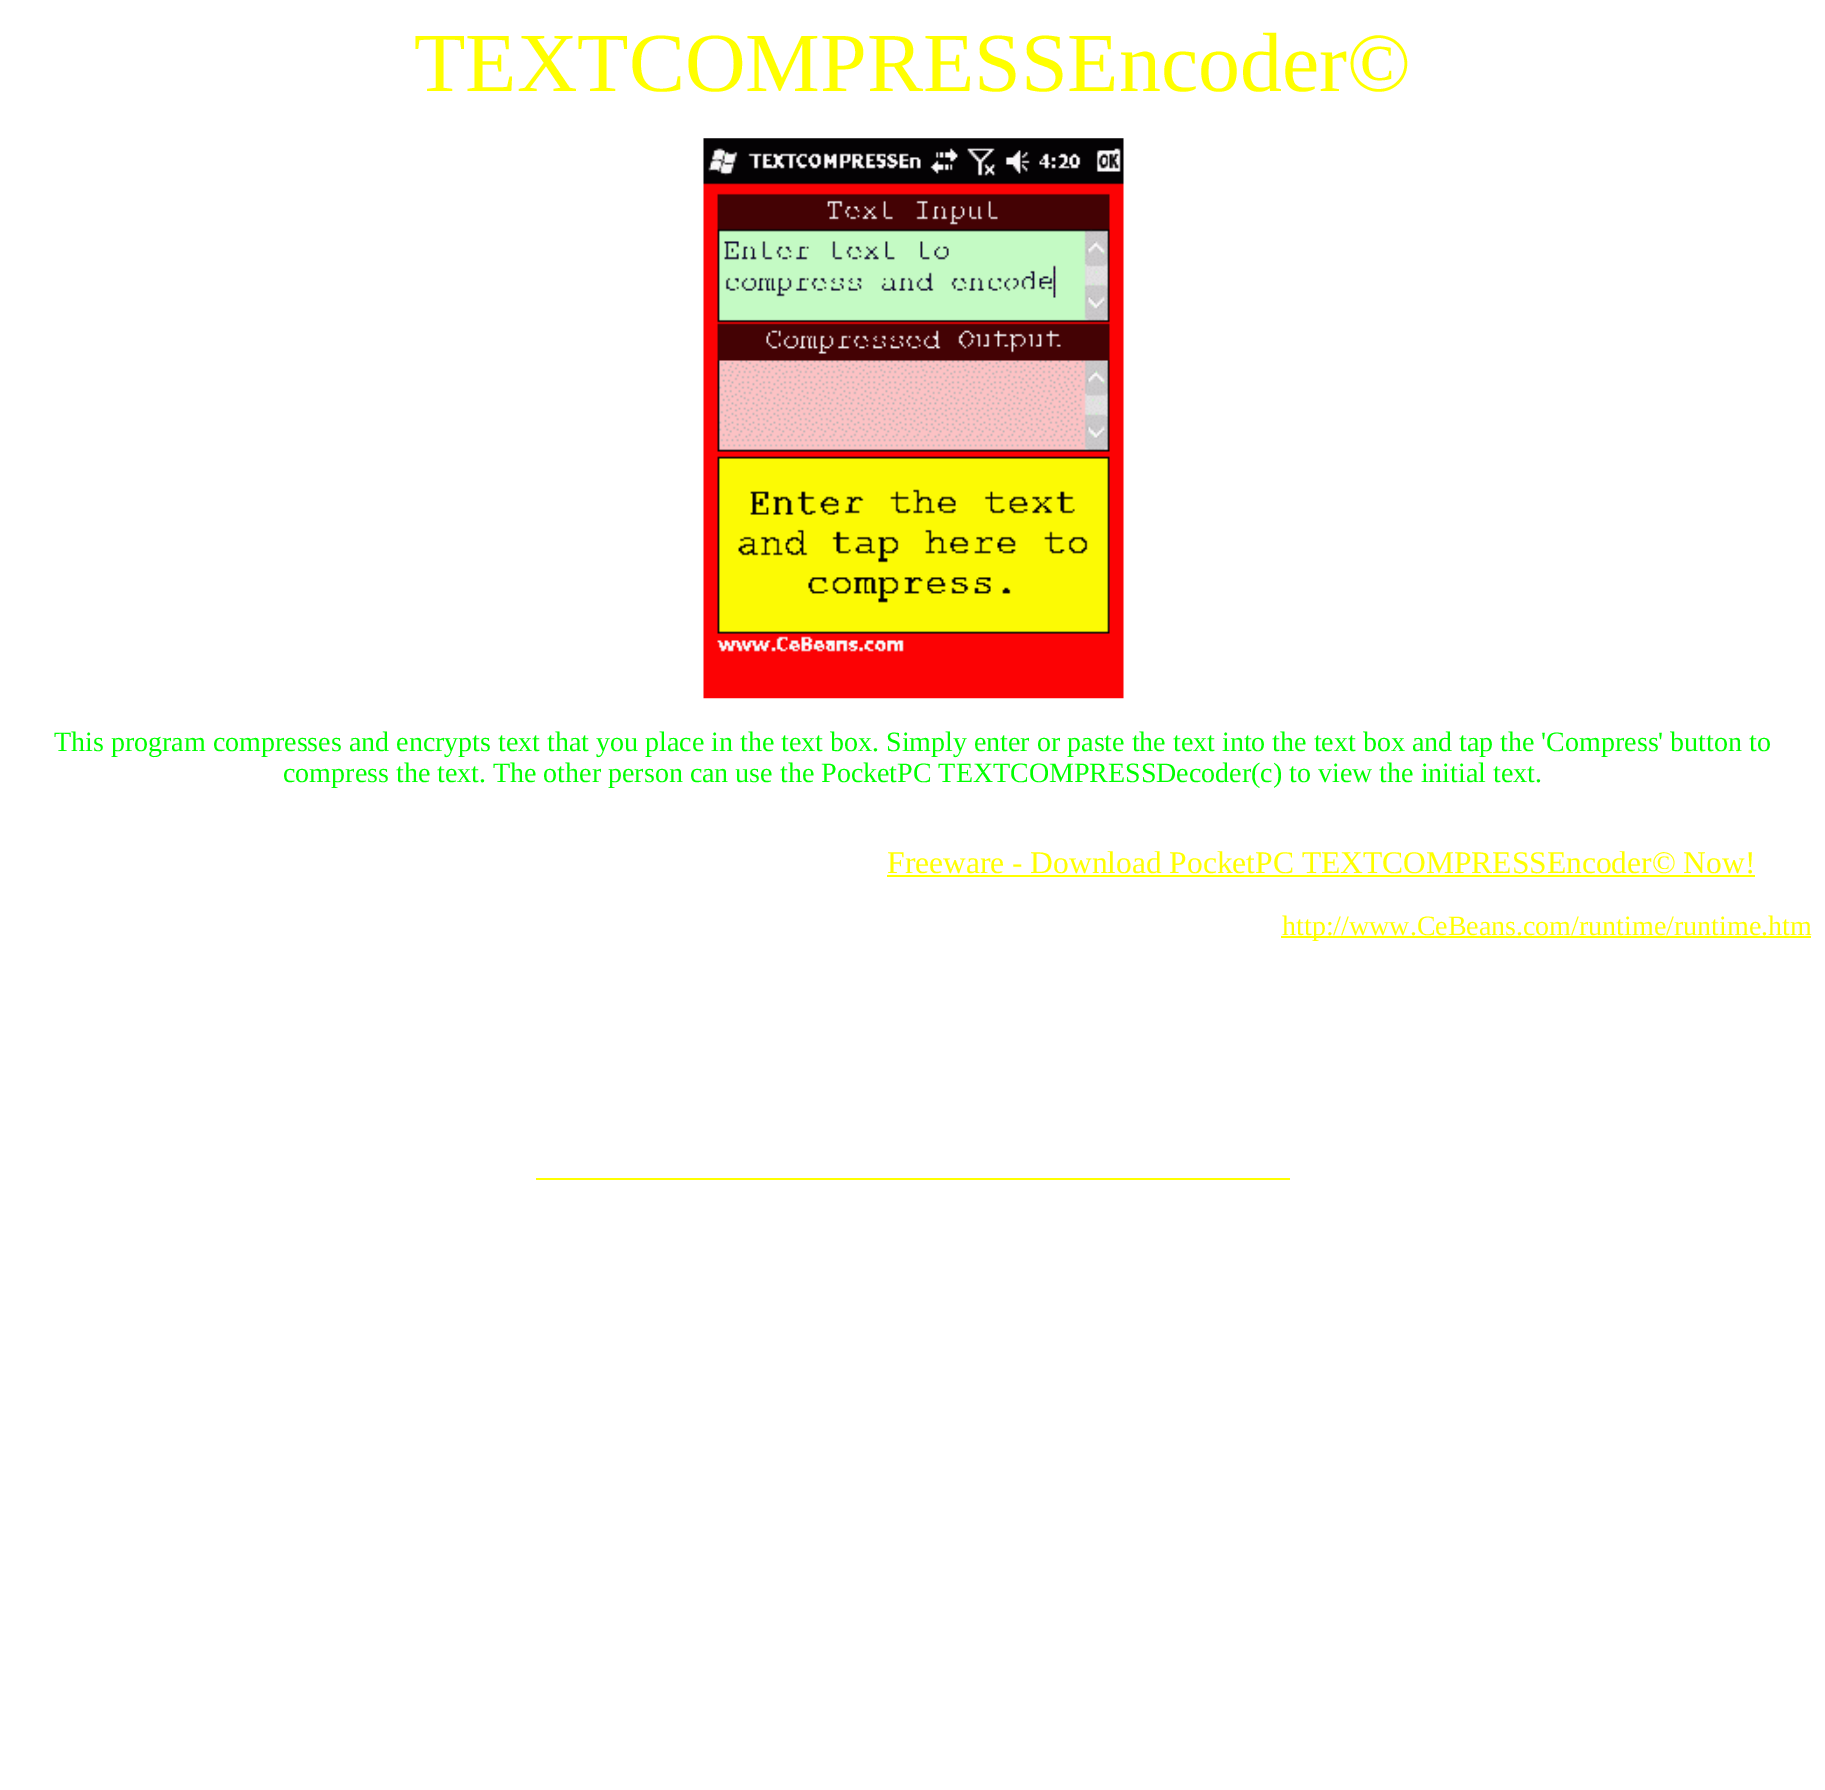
%!PS
<< /PageSize [1825 1790] >> setpagedevice
/rgb { dup -16 bitshift 255 div exch dup -8 bitshift 255 and 255 div exch 255 and 255 div setrgbcolor } def
/font { [ exch dup neg 0 0 3 -1 roll 0 0 ] selectfont } def
/text { moveto show } def
/picture { 5 dict begin { /h /w /y /x /name } { exch def } forall
  gsave x y translate w h scale
  w h 8 [w 0 0 h 0 0] name (r) file false 3 colorimage grestore end } def
0 1790 translate 1 -1 scale
4 setmiterlimit
/s1 { /LiberationSerif-Regular 84 font 16#FFFF00 rgb } def
/s2 { /LiberationSerif-Regular 28 font 16#00FF00 rgb } def
/s3 { /LiberationSerif-Regular 31.5 font 16#FFFF00 rgb } def
/s4 { /LiberationSerif-Regular 28 font 16#FFFF00 rgb } def
16#FFFFFF rgb
0 0 1825 1790 rectfill
s1
(TEXTCOMPRESSEncoder©) 414 91 text
(pic1.raw) 703 138 421 561 picture
s2
(This program compresses and encrypts text that you place in the text box. Simply enter or paste the text into the text box and tap the 'Compress' button to) 54 751 text
(compress the text. The other person can use the PocketPC TEXTCOMPRESSDecoder\(c\) to view the initial text.) 283 782 text
s3
(Freeware - Download PocketPC TEXTCOMPRESSEncoder© Now!) 887 873 text
887 875 868 2 rectfill
1281 936 530 2 rectfill
s4
(http://www.CeBeans.com/runtime/runtime.htm) 1282 935 text
536 1178 754 2 rectfill
showpage
